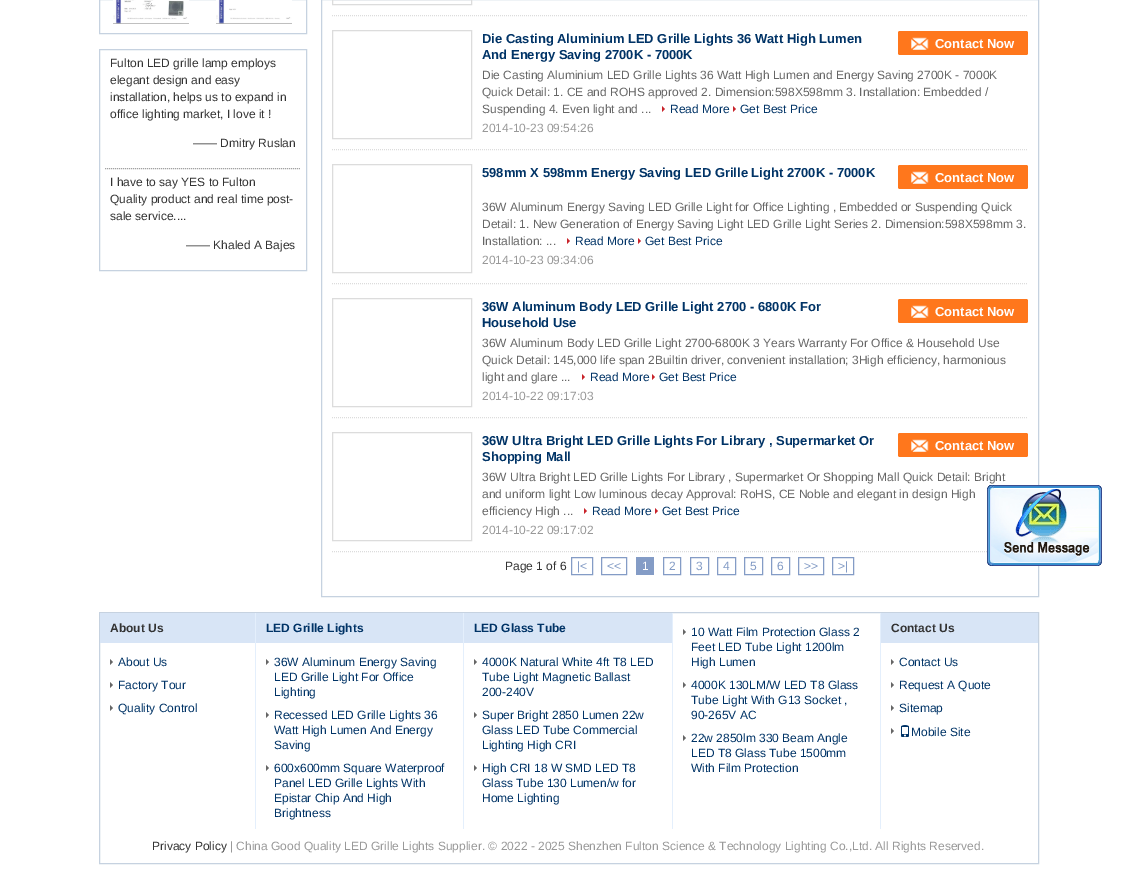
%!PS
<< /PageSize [1137 869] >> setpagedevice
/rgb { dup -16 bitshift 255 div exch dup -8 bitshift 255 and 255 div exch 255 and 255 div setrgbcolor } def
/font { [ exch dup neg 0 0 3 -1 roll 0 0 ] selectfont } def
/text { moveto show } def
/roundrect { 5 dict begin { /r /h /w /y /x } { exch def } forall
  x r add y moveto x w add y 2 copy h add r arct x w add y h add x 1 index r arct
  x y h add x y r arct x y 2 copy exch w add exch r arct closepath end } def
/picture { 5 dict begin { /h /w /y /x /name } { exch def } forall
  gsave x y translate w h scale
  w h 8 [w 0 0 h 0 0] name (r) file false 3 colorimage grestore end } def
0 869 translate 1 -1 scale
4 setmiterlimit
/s1 { /LiberationSans-Regular 12 font 16#333333 rgb } def
/s2 { /LiberationSans-Bold 13 font 16#003366 rgb } def
/s3 { /LiberationSans-Bold 13 font 16#FFFFFF rgb } def
/s4 { /LiberationSans-Regular 12 font 16#666666 rgb } def
/s5 { /LiberationSans-Regular 12 font 16#003366 rgb } def
/s6 { /LiberationSans-Regular 12 font 16#999999 rgb } def
/s7 { /LiberationSans-Regular 12 font 16#849CC6 rgb } def
/s8 { /LiberationSans-Regular 12 font 16#FFFFFF rgb } def
/s9 { /LiberationSans-Bold 12 font 16#333333 rgb } def
/s10 { /LiberationSans-Bold 12 font 16#003366 rgb } def
16#FFFFFF rgb
0 0 1137 869 rectfill
16#C6D2E0 rgb
99.5 -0.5 207 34 rectstroke
(pic1.raw) 113 0 76 24 picture
(pic2.raw) 216 0 76 24 picture
99.5 49.5 207 221 rectstroke
16#A2A2A2 rgb
[1 1] 0 setdash
105 168.5 moveto 301 168.5 lineto stroke
s1
(Fulton LED grille lamp employs) 110 67 text
(elegant design and easy) 110 84 text
(installation, helps us to expand in) 110 101 text
(office lighting market, I love it !) 110 118 text
(—— Dmitry Ruslan) 193 147 text
(I have to say YES to Fulton) 110 186 text
(Quality product and real time post-) 110 203 text
(sale service....) 110 220 text
(—— Khaled A Bajes) 186 249 text
16#C6D2E0 rgb
[] 0 setdash
321.5 -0.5 717 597 rectstroke
16#DCDCDC rgb
[1 1] 0 setdash
332 15.5 moveto 1028 15.5 lineto stroke
[] 0 setdash
332.5 -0.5 139 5 rectstroke
[1 1] 0 setdash
332 149.5 moveto 1028 149.5 lineto stroke
[] 0 setdash
332.5 30.5 139 108 rectstroke
s2
(Die Casting Aluminium LED Grille Lights 36 Watt High Lumen) 482 43 text
16#FF771C rgb
898 31 130 24 2 roundrect fill
(pic3.raw) 911 37 18 13 picture
s3
(Contact Now) 935 48 text
s2
(And Energy Saving 2700K - 7000K) 482 59 text
s4
(Die Casting Aluminium LED Grille Lights 36 Watt High Lumen and Energy Saving 2700K - 7000K) 482 79 text
(Quick Detail: 1. CE and ROHS approved 2. Dimension:598X598mm 3. Installation: Embedded /) 482 96 text
(Suspending 4. Even light and ...) 482 113 text
16#C9242B rgb
662 112 moveto 662 106 lineto 665 109 lineto closepath fill
s5
(Read More) 670 113 text
16#C9242B rgb
733 112 moveto 733 106 lineto 736 109 lineto closepath fill
s5
(Get Best Price) 740 113 text
s6
(2014-10-23 09:54:26) 482 132 text
16#DCDCDC rgb
[1 1] 0 setdash
332 283.5 moveto 1028 283.5 lineto stroke
[] 0 setdash
332.5 164.5 139 108 rectstroke
s2
(598mm X 598mm Energy Saving LED Grille Light 2700K - 7000K) 482 177 text
16#FF771C rgb
898 165 130 24 2 roundrect fill
(pic3.raw) 911 171 18 13 picture
s3
(Contact Now) 935 182 text
s4
(36W Aluminum Energy Saving LED Grille Light for Office Lighting , Embedded or Suspending Quick) 482 211 text
(Detail: 1. New Generation of Energy Saving Light LED Grille Light Series 2. Dimension:598X598mm 3.) 482 228 text
(Installation: ...) 482 245 text
16#C9242B rgb
567 244 moveto 567 238 lineto 570 241 lineto closepath fill
s5
(Read More) 575 245 text
16#C9242B rgb
638 244 moveto 638 238 lineto 641 241 lineto closepath fill
s5
(Get Best Price) 645 245 text
s6
(2014-10-23 09:34:06) 482 264 text
16#DCDCDC rgb
[1 1] 0 setdash
332 417.5 moveto 1028 417.5 lineto stroke
[] 0 setdash
332.5 298.5 139 108 rectstroke
s2
(36W Aluminum Body LED Grille Light 2700 - 6800K For) 482 311 text
16#FF771C rgb
898 299 130 24 2 roundrect fill
(pic3.raw) 911 305 18 13 picture
s3
(Contact Now) 935 316 text
s2
(Household Use) 482 327 text
s4
(36W Aluminum Body LED Grille Light 2700-6800K 3 Years Warranty For Office & Household Use) 482 347 text
(Quick Detail: 145,000 life span 2Builtin driver, convenient installation; 3High efficiency, harmonious) 482 364 text
(light and glare ...) 482 381 text
16#C9242B rgb
582 380 moveto 582 374 lineto 585 377 lineto closepath fill
s5
(Read More) 590 381 text
16#C9242B rgb
652 380 moveto 652 374 lineto 655 377 lineto closepath fill
s5
(Get Best Price) 659 381 text
s6
(2014-10-22 09:17:03) 482 400 text
16#DCDCDC rgb
[1 1] 0 setdash
332 551.5 moveto 1028 551.5 lineto stroke
[] 0 setdash
332.5 432.5 139 108 rectstroke
s2
(36W Ultra Bright LED Grille Lights For Library , Supermarket Or) 482 445 text
16#FF771C rgb
898 433 130 24 2 roundrect fill
(pic3.raw) 911 439 18 13 picture
s3
(Contact Now) 935 450 text
s2
(Shopping Mall) 482 461 text
s4
(36W Ultra Bright LED Grille Lights For Library , Supermarket Or Shopping Mall Quick Detail: Bright) 482 481 text
(and uniform light Low luminous decay Approval: RoHS, CE Noble and elegant in design High) 482 498 text
(efficiency High ...) 482 515 text
16#C9242B rgb
584 514 moveto 584 508 lineto 587 511 lineto closepath fill
s5
(Read More) 592 515 text
16#C9242B rgb
655 514 moveto 655 508 lineto 658 511 lineto closepath fill
s5
(Get Best Price) 662 515 text
s6
(2014-10-22 09:17:02) 482 534 text
s1
(Page 1 of 6) 505 570 text
16#849CC6 rgb
571.5 557.5 21 17 rectstroke
(|<) 577 570 text
601.5 557.5 25 17 rectstroke
(<<) 607 570 text
636 557 18 18 rectfill
s8
(1) 642 570 text
16#849CC6 rgb
663.5 557.5 17 17 rectstroke
(2) 669 570 text
690.5 557.5 18 17 rectstroke
(3) 696 570 text
717.5 557.5 18 17 rectstroke
(4) 723 570 text
744.5 557.5 18 17 rectstroke
(5) 750 570 text
771.5 557.5 18 17 rectstroke
(6) 777 570 text
798.5 557.5 25 17 rectstroke
(>>) 804 570 text
832.5 557.5 21 17 rectstroke
(>|) 838 570 text
16#C6D2E0 rgb
99.5 612.5 939 251 rectstroke
16#E4EFFC rgb
255 613 1 216 rectfill
16#D8E5F6 rgb
100 613 155 30 rectfill
s9
(About Us) 110 632 text
16#666666 rgb
110 665 moveto 110 659 lineto 113 662 lineto closepath fill
s5
(About Us) 118 666 text
16#666666 rgb
110 688 moveto 110 682 lineto 113 685 lineto closepath fill
s5
(Factory Tour) 118 689 text
16#666666 rgb
110 711 moveto 110 705 lineto 113 708 lineto closepath fill
s5
(Quality Control) 118 712 text
16#E4EFFC rgb
463 613 1 216 rectfill
16#D8E5F6 rgb
256 613 207 30 rectfill
s10
(LED Grille Lights) 266 632 text
16#666666 rgb
266 665 moveto 266 659 lineto 269 662 lineto closepath fill
s5
(36W Aluminum Energy Saving) 274 666 text
(LED Grille Light For Office) 274 681 text
(Lighting) 274 696 text
16#666666 rgb
266 718 moveto 266 712 lineto 269 715 lineto closepath fill
s5
(Recessed LED Grille Lights 36) 274 719 text
(Watt High Lumen And Energy) 274 734 text
(Saving) 274 749 text
16#666666 rgb
266 771 moveto 266 765 lineto 269 768 lineto closepath fill
s5
(600x600mm Square Waterproof) 274 772 text
(Panel LED Grille Lights With) 274 787 text
(Epistar Chip And High) 274 802 text
(Brightness) 274 817 text
16#E4EFFC rgb
672 613 1 216 rectfill
16#D8E5F6 rgb
464 613 208 30 rectfill
s10
(LED Glass Tube) 474 632 text
16#666666 rgb
474 665 moveto 474 659 lineto 477 662 lineto closepath fill
s5
(4000K Natural White 4ft T8 LED) 482 666 text
(Tube Light Magnetic Ballast) 482 681 text
(200-240V) 482 696 text
16#666666 rgb
474 718 moveto 474 712 lineto 477 715 lineto closepath fill
s5
(Super Bright 2850 Lumen 22w) 482 719 text
(Glass LED Tube Commercial) 482 734 text
(Lighting High CRI) 482 749 text
16#666666 rgb
474 771 moveto 474 765 lineto 477 768 lineto closepath fill
s5
(High CRI 18 W SMD LED T8) 482 772 text
(Glass Tube 130 Lumen/w for) 482 787 text
(Home Lighting) 482 802 text
16#E4EFFC rgb
880 613 1 216 rectfill
16#666666 rgb
683 635 moveto 683 629 lineto 686 632 lineto closepath fill
s5
(10 Watt Film Protection Glass 2) 691 636 text
(Feet LED Tube Light 1200lm) 691 651 text
(High Lumen) 691 666 text
16#666666 rgb
683 688 moveto 683 682 lineto 686 685 lineto closepath fill
s5
(4000K 130LM/W LED T8 Glass) 691 689 text
(Tube Light With G13 Socket ,) 691 704 text
(90-265V AC) 691 719 text
16#666666 rgb
683 741 moveto 683 735 lineto 686 738 lineto closepath fill
s5
(22w 2850lm 330 Beam Angle) 691 742 text
(LED T8 Glass Tube 1500mm) 691 757 text
(With Film Protection) 691 772 text
16#D8E5F6 rgb
881 613 157 30 rectfill
s9
(Contact Us) 891 632 text
16#666666 rgb
891 665 moveto 891 659 lineto 894 662 lineto closepath fill
s5
(Contact Us) 899 666 text
16#666666 rgb
891 688 moveto 891 682 lineto 894 685 lineto closepath fill
s5
(Request A Quote) 899 689 text
16#666666 rgb
891 711 moveto 891 705 lineto 894 708 lineto closepath fill
s5
(Sitemap) 899 712 text
16#666666 rgb
891 734 moveto 891 728 lineto 894 731 lineto closepath fill
(pic4.raw) 901 725 8 12 picture
s5
(Mobile Site) 911 736 text
s1
(Privacy Policy) 152 850 text
s6
(| China Good Quality LED Grille Lights Supplier. © 2022 - 2025 Shenzhen Fulton Science & Technology Lighting Co.,Ltd. All Rights Reserved.) 230 850 text
(pic5.raw) 987 485 115 81 picture
showpage
